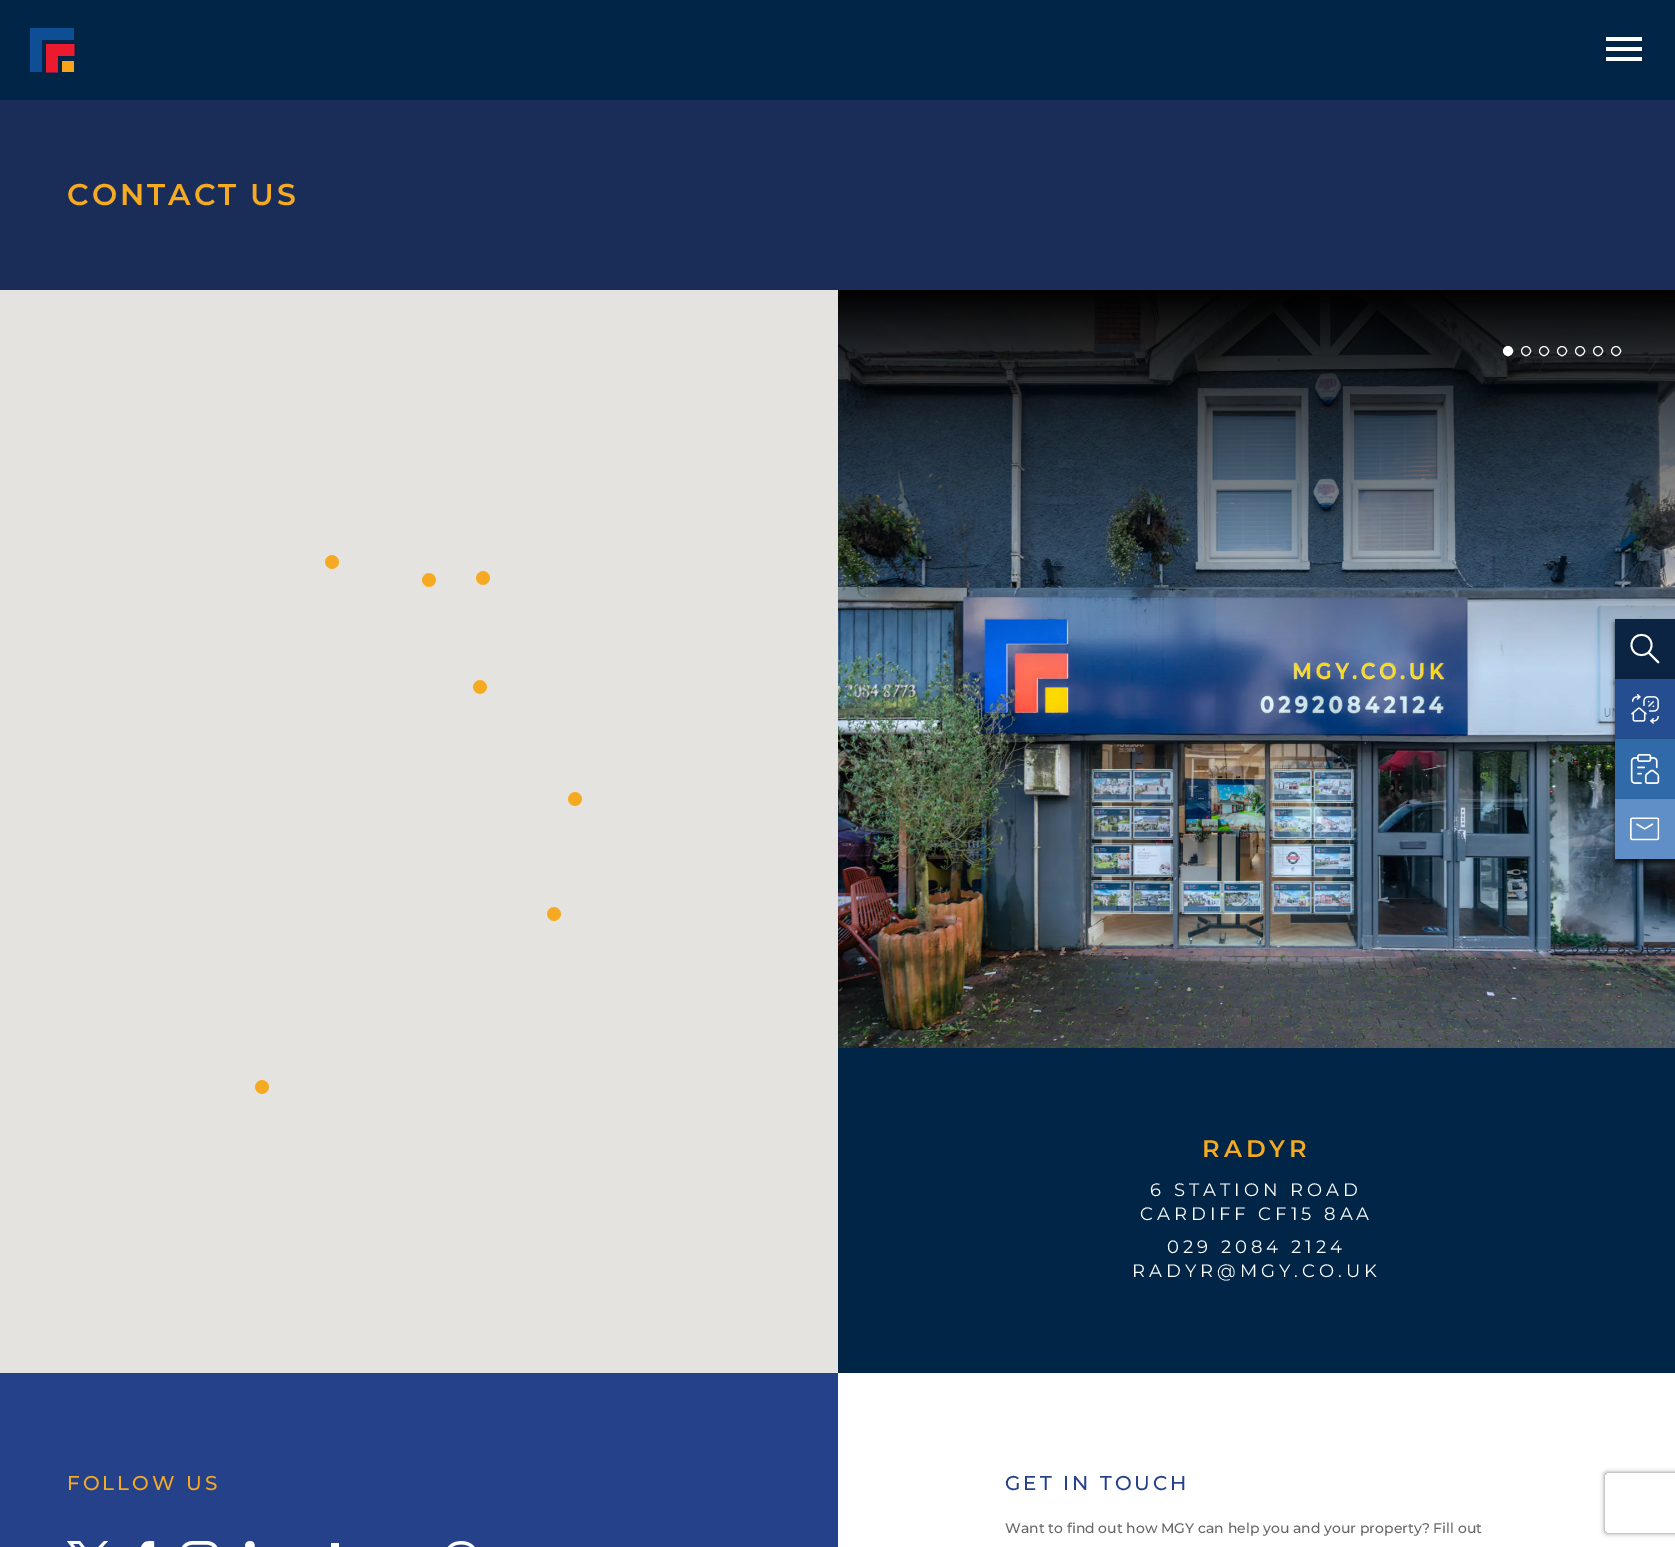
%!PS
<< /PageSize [1675 1547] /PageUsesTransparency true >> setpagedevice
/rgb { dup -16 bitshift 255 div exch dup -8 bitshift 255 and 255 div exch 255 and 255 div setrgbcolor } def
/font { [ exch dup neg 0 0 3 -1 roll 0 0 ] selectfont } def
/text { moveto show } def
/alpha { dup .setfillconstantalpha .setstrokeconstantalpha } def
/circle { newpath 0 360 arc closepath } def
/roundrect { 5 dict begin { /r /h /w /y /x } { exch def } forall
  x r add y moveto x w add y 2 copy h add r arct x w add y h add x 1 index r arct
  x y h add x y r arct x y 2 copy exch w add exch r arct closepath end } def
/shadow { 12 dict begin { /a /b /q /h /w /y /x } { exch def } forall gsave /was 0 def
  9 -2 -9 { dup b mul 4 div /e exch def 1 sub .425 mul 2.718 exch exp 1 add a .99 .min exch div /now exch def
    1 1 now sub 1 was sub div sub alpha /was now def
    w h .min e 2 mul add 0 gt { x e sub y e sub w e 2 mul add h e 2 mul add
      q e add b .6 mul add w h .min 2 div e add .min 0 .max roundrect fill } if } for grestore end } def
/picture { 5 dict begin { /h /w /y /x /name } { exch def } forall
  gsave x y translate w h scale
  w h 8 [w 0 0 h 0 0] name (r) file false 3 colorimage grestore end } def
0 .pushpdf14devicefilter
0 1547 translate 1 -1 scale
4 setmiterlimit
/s1 { /Montserrat-Medium 14 font 16#666666 rgb } def
16#1A2D59 rgb
0 0 1675 1547 rectfill
16#002546 rgb
0 0 1675 100 rectfill
16#F8A41A rgb
62 61 12 11 rectfill
16#EB1A2F rgb
58 72.5 moveto 46 72.5 lineto 46 44 lineto 74.5 44 lineto 74.5 56 lineto 58 56 lineto closepath fill
16#0D4E94 rgb
42 72 moveto 30 72 lineto 30 28 lineto 74 28 lineto 74 40 lineto 42 40 lineto closepath fill
16#FFFFFF rgb
1606 37 moveto 1642 37 lineto 1642 41 lineto 1606 41 lineto closepath 1606 51 moveto 1606 47 lineto 1642 47 lineto 1642 51 lineto closepath 1606 61 moveto 1606 57 lineto 1642 57 lineto 1642 61 lineto closepath fill
/Montserrat-SemiBold 30 font
16#F6AA21 rgb
67 205 moveto 3 0 (CONTACT US) ashow
16#E5E3DF rgb
0 290 838 1083 rectfill
(pic1.raw) 325 555 14 14 picture
(pic1.raw) 422 573 14 14 picture
(pic1.raw) 476 571 14 14 picture
(pic1.raw) 473 680 14 14 picture
(pic1.raw) 568 792 14 14 picture
(pic1.raw) 547 907 14 14 picture
(pic1.raw) 255 1080 14 14 picture
(pic2.raw) 838 290 837 758 picture
16#FFFFFF rgb
1508 351 4.5 circle gsave fill grestore
stroke
1526 351 4.5 circle stroke
1544 351 4.5 circle stroke
1562 351 4.5 circle stroke
1580 351 4.5 circle stroke
1598 351 4.5 circle stroke
1616 351 4.5 circle stroke
16#002546 rgb
838 1048 837 325 rectfill
/Montserrat-SemiBold 24 font
16#F6AA21 rgb
1202 1157 moveto 4 0 (RADYR) ashow
/Montserrat-Regular 18 font
16#FFFFFF rgb
1150 1196 moveto 4 0 (6 STATION ROAD) ashow
1140 1220 moveto 4 0 (CARDIFF CF15 8AA) ashow
1167 1253 moveto 4 0 (029 2084 2124) ashow
1132 1277 moveto 4 0 (RADYR@MGY.CO.UK) ashow
16#25418A rgb
0 1373 838 174 rectfill
/Montserrat-Medium 20 font
16#F6AA21 rgb
67 1490 moveto 3 0 (FOLLOW US) ashow
16#FFFFFF rgb
104 1541 moveto 91 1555 lineto 80 1541 lineto 67 1541 lineto 84 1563 lineto 67 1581 lineto 71 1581 lineto 85 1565 lineto 97 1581 lineto 110 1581 lineto 92 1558 lineto 108 1541 lineto closepath 73 1544 moveto 79 1544 lineto 105 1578 lineto 99 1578 lineto closepath eofill
(pic3.raw) 141 1541 14 6 picture
(pic4.raw) 181 1541 37 6 picture
(pic5.raw) 245 1541 10 6 picture
331 1543 8 4 rectfill
(pic6.raw) 447 1541 28 6 picture
838 1373 837 174 rectfill
16#25418A rgb
1005 1490 moveto 3 0 (GET IN TOUCH) ashow
s1
(Want to find out how MGY can help you and your property? Fill out) 1005 1533 text
16#000000 rgb
1615 623 60 60 0 2.5 0.75 shadow
16#0B2444 rgb
1615 619 60 60 rectfill
16#FFFFFF rgb
1.8 setlinewidth
1 setlinecap
1 setlinejoin
1651.5 645 moveto 1651.5 658.5 1631.5 658.5 1631.5 645 curveto 1631.5 631.5 1651.5 631.5 1651.5 645 curveto closepath 1648.5 652.5 moveto 1658.5 662.5 lineto stroke
16#000000 rgb
1615 683 60 60 0 2.5 0.75 shadow
16#244E90 rgb
1615 679 60 60 rectfill
(pic7.raw) 1631 694 28 30 picture
16#000000 rgb
1615 743 60 60 0 2.5 0.75 shadow
16#316AA8 rgb
1615 739 60 60 rectfill
(pic8.raw) 1630 754 30 30 picture
16#000000 rgb
1615 803 60 60 0 2.5 0.75 shadow
16#608EC7 rgb
1615 799 60 60 rectfill
(pic9.raw) 1630 817 30 24 picture
gsave
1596 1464 moveto 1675 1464 lineto 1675 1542 lineto 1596 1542 lineto closepath 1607 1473 moveto 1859 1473 lineto 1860 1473 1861 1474 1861 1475 curveto 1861 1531 lineto 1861 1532 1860 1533 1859 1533 curveto 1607 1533 lineto 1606 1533 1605 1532 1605 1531 curveto 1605 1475 lineto 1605 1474 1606 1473 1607 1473 curveto closepath eoclip newpath
16#808080 rgb
1605 1473 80 60 2 2.5 1 shadow
grestore
.poppdf14devicefilter showpage
